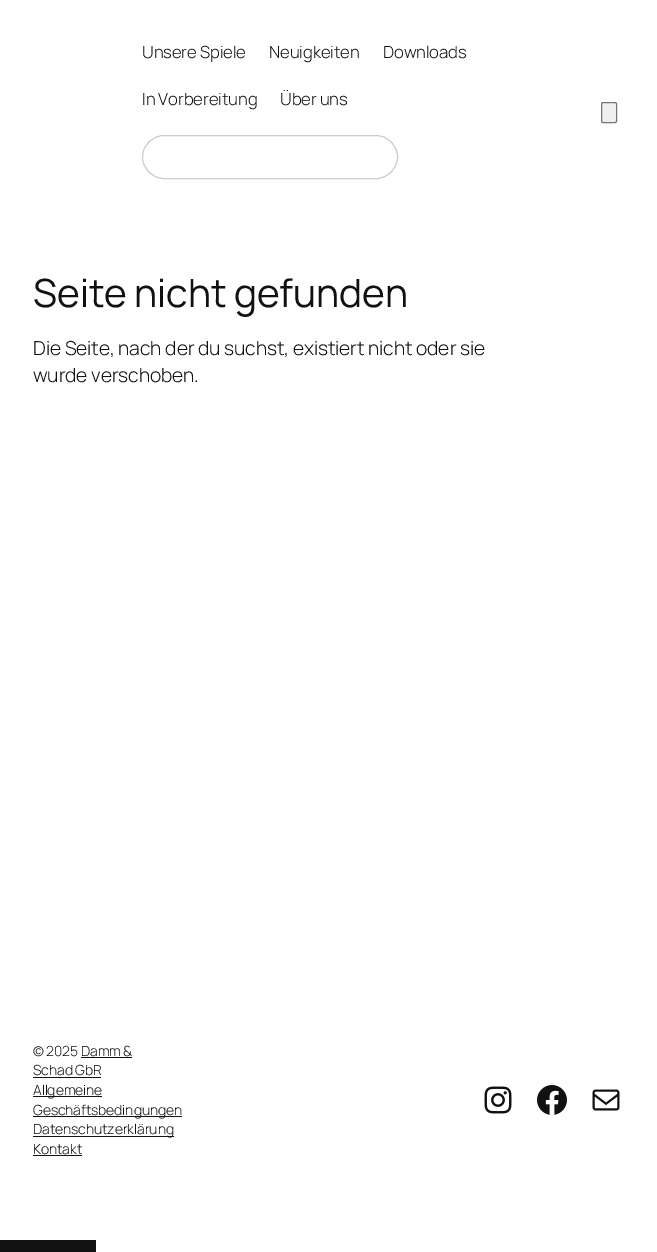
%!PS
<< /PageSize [657 1252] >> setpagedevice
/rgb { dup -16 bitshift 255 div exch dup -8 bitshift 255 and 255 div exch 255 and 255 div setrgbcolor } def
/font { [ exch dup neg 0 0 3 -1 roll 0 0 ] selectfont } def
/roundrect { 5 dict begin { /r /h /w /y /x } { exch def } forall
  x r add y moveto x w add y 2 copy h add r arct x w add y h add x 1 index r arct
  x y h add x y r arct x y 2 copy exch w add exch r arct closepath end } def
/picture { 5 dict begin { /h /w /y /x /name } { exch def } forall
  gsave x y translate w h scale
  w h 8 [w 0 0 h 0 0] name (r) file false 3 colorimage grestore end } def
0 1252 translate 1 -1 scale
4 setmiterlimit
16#FFFFFF rgb
0 0 657 1252 rectfill
/Manrope-Light 16.75 font
16#111111 rgb
142 58 moveto -0.1 0 (Unsere Spiele) ashow
269 58 moveto -0.1 0 (Neuigkeiten) ashow
383 58 moveto -0.1 0 (Downloads) ashow
142 105 moveto -0.1 0 (In Vorbereitung) ashow
280 105 moveto -0.1 0 (Über uns) ashow
16#CCCCCC rgb
142.5 135.5 255 43 21.5 roundrect stroke
16#EFEFEF rgb
601.5 102.5 15 20 1.5 roundrect gsave fill grestore
16#767676 rgb
stroke
/Manrope-Regular 38.9 font
16#111111 rgb
33 307 moveto -0.1 0 (Seite nicht gefunden) ashow
/Manrope-Light 19.3 font
33 355 moveto -0.1 0 (Die Seite, nach der du suchst, existiert nicht oder sie) ashow
33 382 moveto -0.1 0 (wurde verschoben.) ashow
/Manrope-Light 14 font
33 1056 moveto -0.1 0 (© 2025 Damm &) ashow
33 1075 moveto -0.1 0 (Schad GbR) ashow
81 1057 51 1 rectfill
33 1077 68 1 rectfill
33 1096 69 1 rectfill
33 1095 moveto -0.1 0 (Allgemeine) ashow
33 1116 149 1 rectfill
33 1115 moveto -0.1 0 (Geschäftsbedingungen) ashow
33 1136 141 1 rectfill
33 1134 moveto -0.1 0 (Datenschutzerklärung) ashow
33 1154 moveto -0.1 0 (Kontakt) ashow
33 1155 49 1 rectfill
(pic1.raw) 484 1086 28 28 picture
(pic2.raw) 537 1085 30 30 picture
(pic3.raw) 592 1089 28 22 picture
0 1240 96 12 rectfill
showpage
